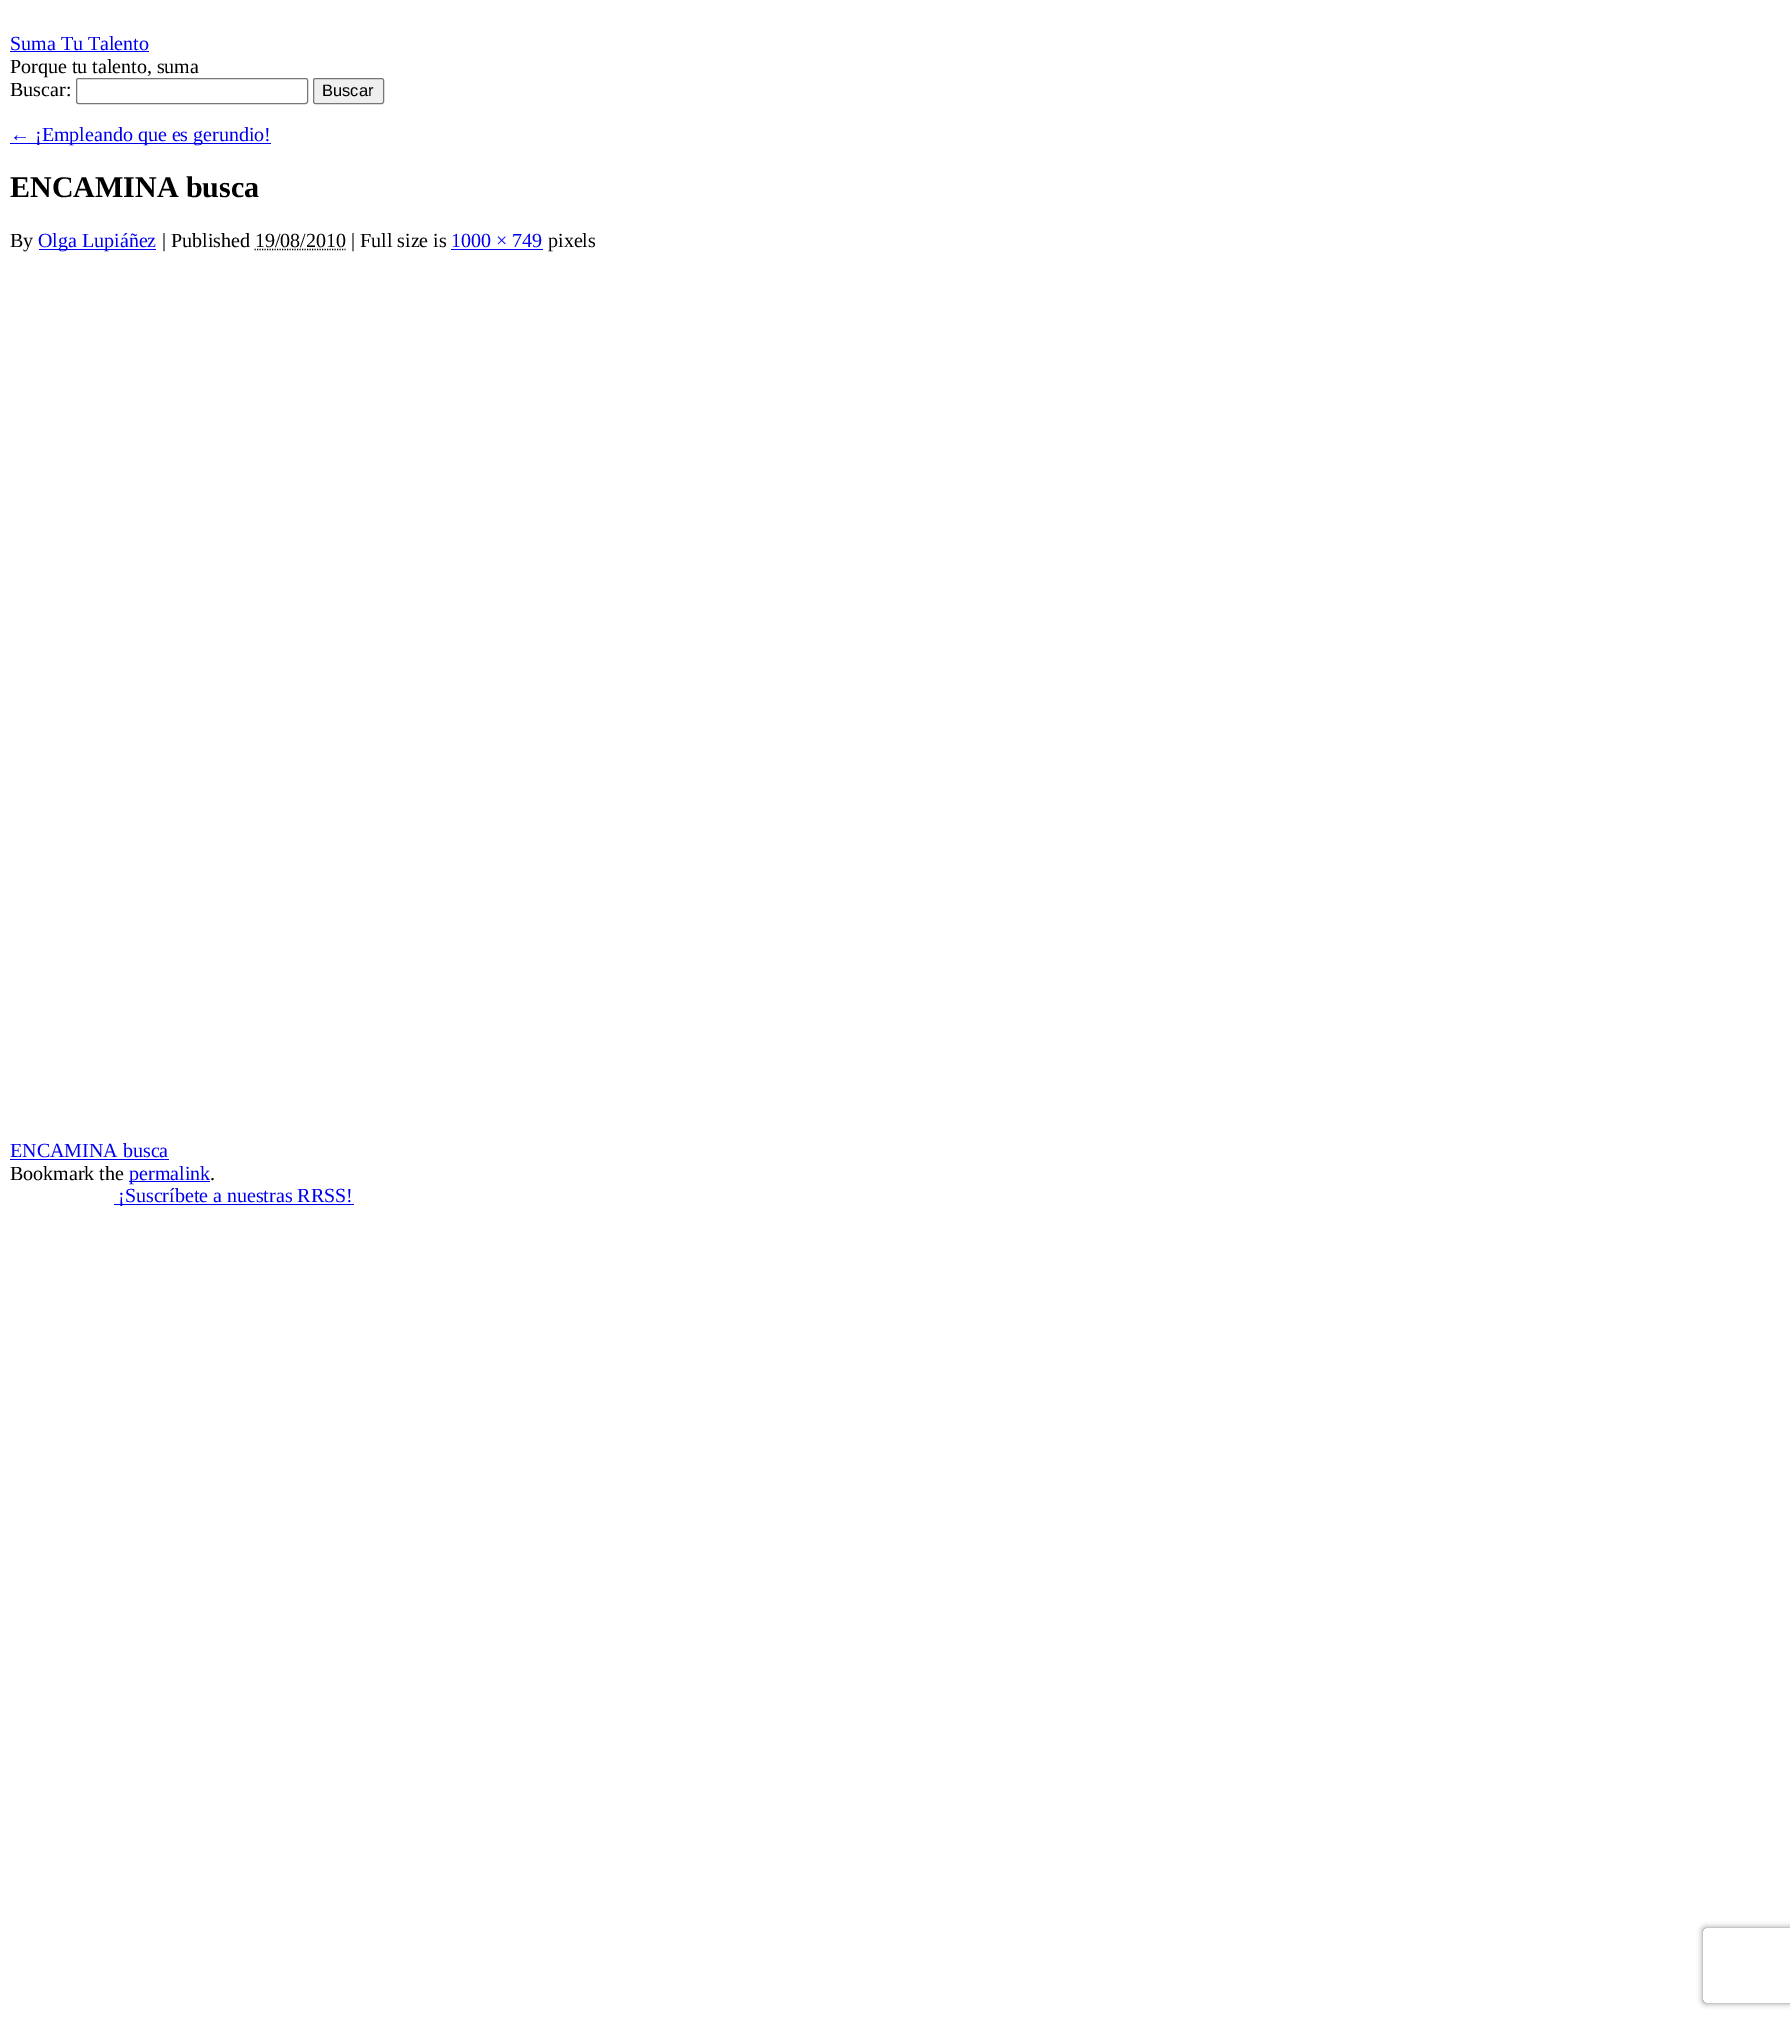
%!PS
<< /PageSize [1790 2019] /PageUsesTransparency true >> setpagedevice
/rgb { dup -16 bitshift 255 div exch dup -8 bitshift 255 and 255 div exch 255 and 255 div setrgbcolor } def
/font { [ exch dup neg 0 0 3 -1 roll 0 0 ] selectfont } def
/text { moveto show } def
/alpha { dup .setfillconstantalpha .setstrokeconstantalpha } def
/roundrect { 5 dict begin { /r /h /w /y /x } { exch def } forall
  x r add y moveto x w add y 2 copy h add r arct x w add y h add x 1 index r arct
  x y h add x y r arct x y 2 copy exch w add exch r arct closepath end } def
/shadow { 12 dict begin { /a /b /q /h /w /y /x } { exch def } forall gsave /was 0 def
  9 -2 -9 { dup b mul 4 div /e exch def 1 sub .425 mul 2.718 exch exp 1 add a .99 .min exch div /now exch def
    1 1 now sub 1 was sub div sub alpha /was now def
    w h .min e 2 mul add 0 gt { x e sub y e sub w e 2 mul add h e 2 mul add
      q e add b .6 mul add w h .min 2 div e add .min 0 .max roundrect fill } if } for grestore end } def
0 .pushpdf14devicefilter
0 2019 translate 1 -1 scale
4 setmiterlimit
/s1 { /LiberationSerif-Regular 20 font 16#0000EE rgb } def
/s2 { /LiberationSerif-Regular 20 font 16#000000 rgb } def
/s3 { /LiberationSans-Regular 16.5 font 16#000000 rgb } def
/s4 { /LiberationSerif-Bold 30 font 16#000000 rgb } def
16#FFFFFF rgb
0 0 1790 2019 rectfill
s1
(Suma Tu Talento) 10 50 text
10 51 139 1 rectfill
s2
(Porque tu talento, suma) 10 73 text
(Buscar:) 10 96 text
16#767676 rgb
76.5 78.5 231 25 2 roundrect stroke
16#EFEFEF rgb
313.5 78.5 70 25 2 roundrect gsave fill grestore
16#767676 rgb
stroke
s3
(Buscar) 322 96 text
16#0000EE rgb
10 143 261 1 rectfill
s1
(← ¡Empleando que es gerundio!) 10 141 text
s4
(ENCAMINA busca) 10 197 text
s2
(By) 10 247 text
16#0000EE rgb
39 249 117 1 rectfill
(Olga Lupiáñez) 38 247 text
s2
(| Published 19/08/2010 | Full size is) 162 247 text
s1
(1000 × 749) 451 247 text
451 249 92 1 rectfill
s2
(pixels) 548 247 text
1.2 setlinewidth
[1.25 1.25] 0 setdash
254.5 249.5 moveto 345.5 249.5 lineto stroke
s1
(ENCAMINA busca) 10 1157 text
10 1159 159 1 rectfill
s2
(Bookmark the) 10 1180 text
16#0000EE rgb
129 1181 81 1 rectfill
(permalink) 129 1180 text
s2
(.) 210 1180 text
16#0000EE rgb
114 1204 240 1 rectfill
(¡Suscríbete a nuestras RRSS!) 118 1202 text
gsave
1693 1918 moveto 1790 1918 lineto 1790 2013 lineto 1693 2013 lineto closepath 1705.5 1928 moveto 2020.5 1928 lineto 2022 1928 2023 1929 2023 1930.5 curveto 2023 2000.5 lineto 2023 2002 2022 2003 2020.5 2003 curveto 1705.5 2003 lineto 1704 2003 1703 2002 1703 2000.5 curveto 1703 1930.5 lineto 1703 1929 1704 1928 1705.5 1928 curveto closepath eoclip newpath
16#808080 rgb
1703 1928 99 75 2.5 3 1 shadow
grestore
.poppdf14devicefilter showpage
